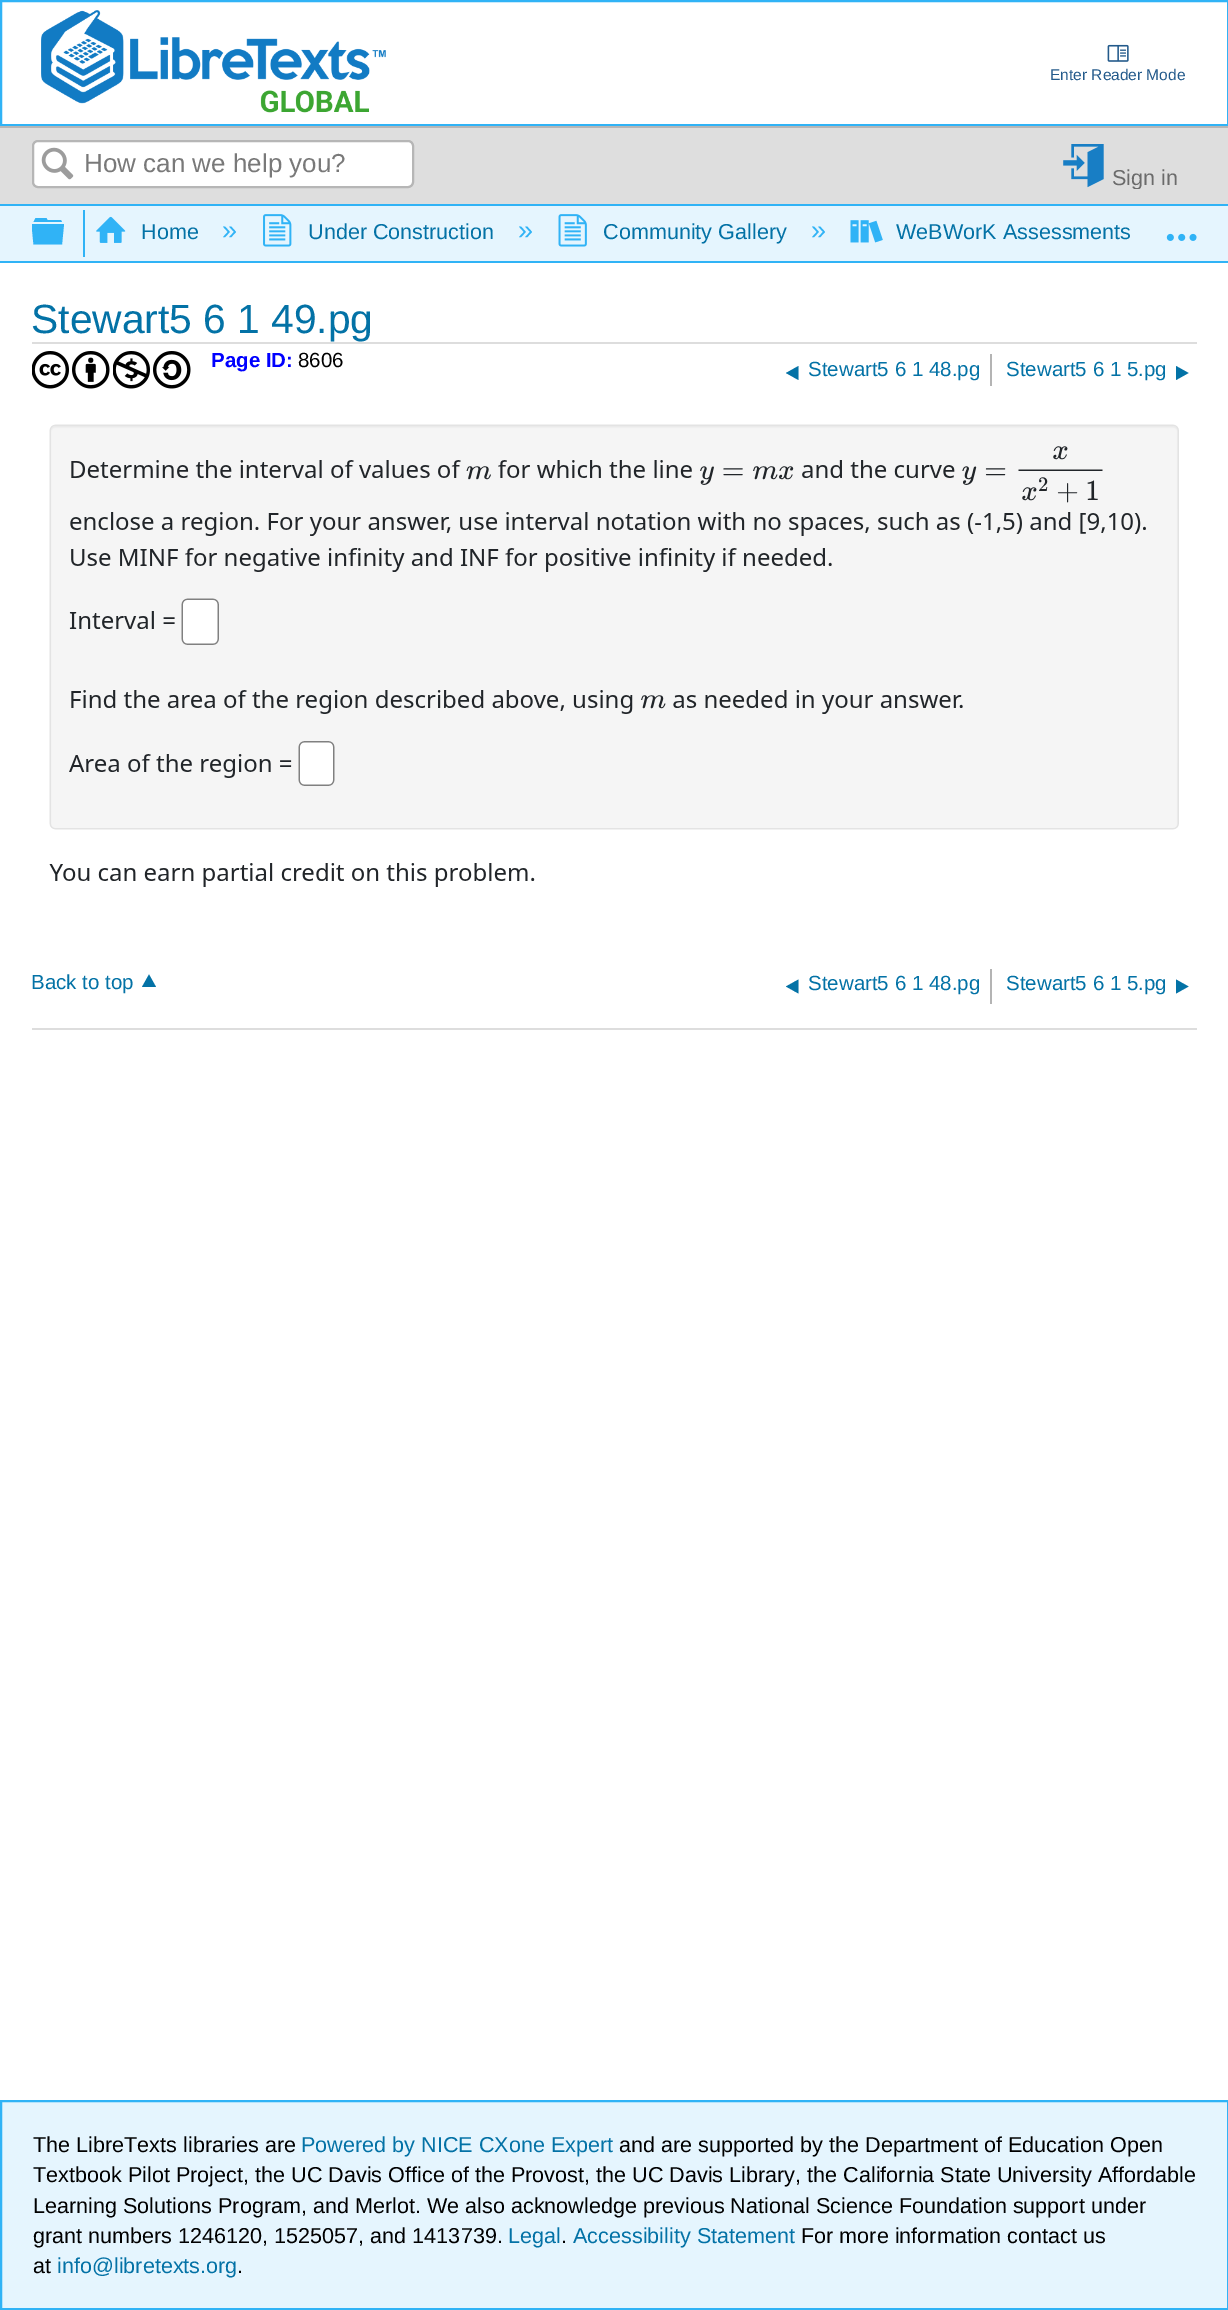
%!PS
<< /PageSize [1228 2310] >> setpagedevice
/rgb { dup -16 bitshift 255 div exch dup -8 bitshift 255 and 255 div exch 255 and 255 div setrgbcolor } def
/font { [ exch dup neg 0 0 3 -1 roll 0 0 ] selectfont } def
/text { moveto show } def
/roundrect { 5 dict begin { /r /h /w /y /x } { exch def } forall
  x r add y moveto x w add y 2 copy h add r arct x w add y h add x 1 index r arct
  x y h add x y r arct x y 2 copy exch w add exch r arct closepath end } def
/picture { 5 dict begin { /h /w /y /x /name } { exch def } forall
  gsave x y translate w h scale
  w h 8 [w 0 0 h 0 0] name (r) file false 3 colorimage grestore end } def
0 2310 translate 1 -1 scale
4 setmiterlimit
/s1 { /LiberationSans-Regular 15.5 font 16#235A8B rgb } def
/s2 { /LiberationSans-Regular 26 font 16#797979 rgb } def
/s3 { /LiberationSans-Regular 21.6 font 16#6B6B6B rgb } def
/s4 { /LiberationSans-Regular 21.6 font 16#0372A6 rgb } def
/s5 { /LiberationSans-Regular 27 font 16#30B3F6 rgb } def
/s6 { /LiberationSans-Regular 40.75 font 16#0372A6 rgb } def
/s7 { /LiberationSans-Bold 20.5 font 16#0000FF rgb } def
/s8 { /LiberationSans-Regular 20.5 font 16#000000 rgb } def
/s9 { /LiberationSans-Regular 20.5 font 16#0372A6 rgb } def
/s10 { /LiberationSans-Regular 21.6 font 16#000000 rgb } def
16#FFFFFF rgb
0 0 1228 2310 rectfill
16#30B3F6 rgb
2 setlinewidth
1 1 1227 124 rectstroke
(pic1.raw) 41 10 345 103 picture
(pic2.raw) 1107 44 22 18 picture
s1
(Enter Reader Mode) 1050 80 text
16#DEDEDE rgb
0 128 1228 76 rectfill
16#B6B6B6 rgb
0 126 1228 2 rectfill
16#FFFFFF rgb
33 141 380 46 5 roundrect gsave fill grestore
16#B6B6B6 rgb
stroke
(pic3.raw) 41 147 33 33 picture
s2
(How can we help you?) 84 172 text
(pic4.raw) 1063 144 41 44 picture
gsave
1061 143 126 46 rectclip
s3
(Sign in) 1112 185 text
grestore
16#E5F5FE rgb
0 206 1228 55 rectfill
16#30B3F6 rgb
0 204 1228 2 rectfill
0 261 1228 2 rectfill
32 229 moveto 32 224 lineto 64 224 lineto 62 244.5 lineto 33.5 244.5 lineto closepath 61 220 moveto 47.5 220 lineto 46.5 218 lineto 35.5 218 lineto 33.5 222 lineto 62 222 lineto closepath eofill
83 210 2 47 rectfill
(pic5.raw) 96 216 30 27 picture
s4
(Home) 141 239 text
s5
(») 222 239 text
(pic6.raw) 263 214 29 33 picture
s4
(Under Construction) 308 239 text
s5
(») 518 239 text
(pic7.raw) 558 214 29 33 picture
s4
(Community Gallery) 603 239 text
s5
(») 811 239 text
(pic8.raw) 850 220 33 23 picture
s4
(WeBWorK Assessments) 896 239 text
(pic9.raw) 1166 233 31 8 picture
16#DDDDDD rgb
32 342 1165 2 rectfill
s6
(Stewart5 6 1 49.pg) 31 333 text
(pic10.raw) 32 351 37 38 picture
(pic11.raw) 72 351 38 38 picture
(pic12.raw) 113 351 37 38 picture
(pic13.raw) 153 351 38 38 picture
s7
(Page ID:) 211 367 text
s8
(8606) 298 367 text
16#B4B4B4 rgb
990 354 2 32 rectfill
16#0372A6 rgb
798.5 366 moveto 798.5 380 lineto 786 373 lineto closepath fill
(Stewart5 6 1 48.pg) 808 376 text
(Stewart5 6 1 5.pg) 1006 376 text
1176 366 moveto 1176 380 lineto 1188.5 373 lineto closepath fill
(pic14.raw) 49 424 1130 463 picture
16#DDDDDD rgb
32 1028 1165 2 rectfill
s9
(Back to top) 31 989 text
142 987 moveto 156 987 lineto 149 974.5 lineto closepath fill
16#B4B4B4 rgb
990 969 2 35 rectfill
16#0372A6 rgb
798.5 979.5 moveto 798.5 993.5 lineto 786 986.5 lineto closepath fill
(Stewart5 6 1 48.pg) 808 990 text
(Stewart5 6 1 5.pg) 1006 990 text
1176 979.5 moveto 1176 993.5 lineto 1188.5 986.5 lineto closepath fill
16#E5F5FE rgb
1 2101 moveto 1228 2101 lineto 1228 2309 lineto 1 2309 lineto closepath gsave fill grestore
16#30B3F6 rgb
stroke
s10
(The LibreTexts libraries are) 33 2152 text
s4
(Powered by NICE CXone Expert) 301 2152 text
s10
(and are supported by the Department of Education Open) 619 2152 text
(Textbook Pilot Project, the UC Davis Office of the Provost, the UC Davis Library, the California State University Affordable) 33 2182 text
(Learning Solutions Program, and Merlot. We also acknowledge previous National Science Foundation support under) 33 2213 text
(grant numbers 1246120, 1525057, and 1413739.) 33 2243 text
s4
(Legal) 508 2243 text
s10
(.) 561 2243 text
s4
(Accessibility Statement) 573 2243 text
s10
(For more information contact us) 801 2243 text
(at) 33 2273 text
s4
(info@libretexts.org) 57 2273 text
s10
(.) 237 2273 text
showpage
